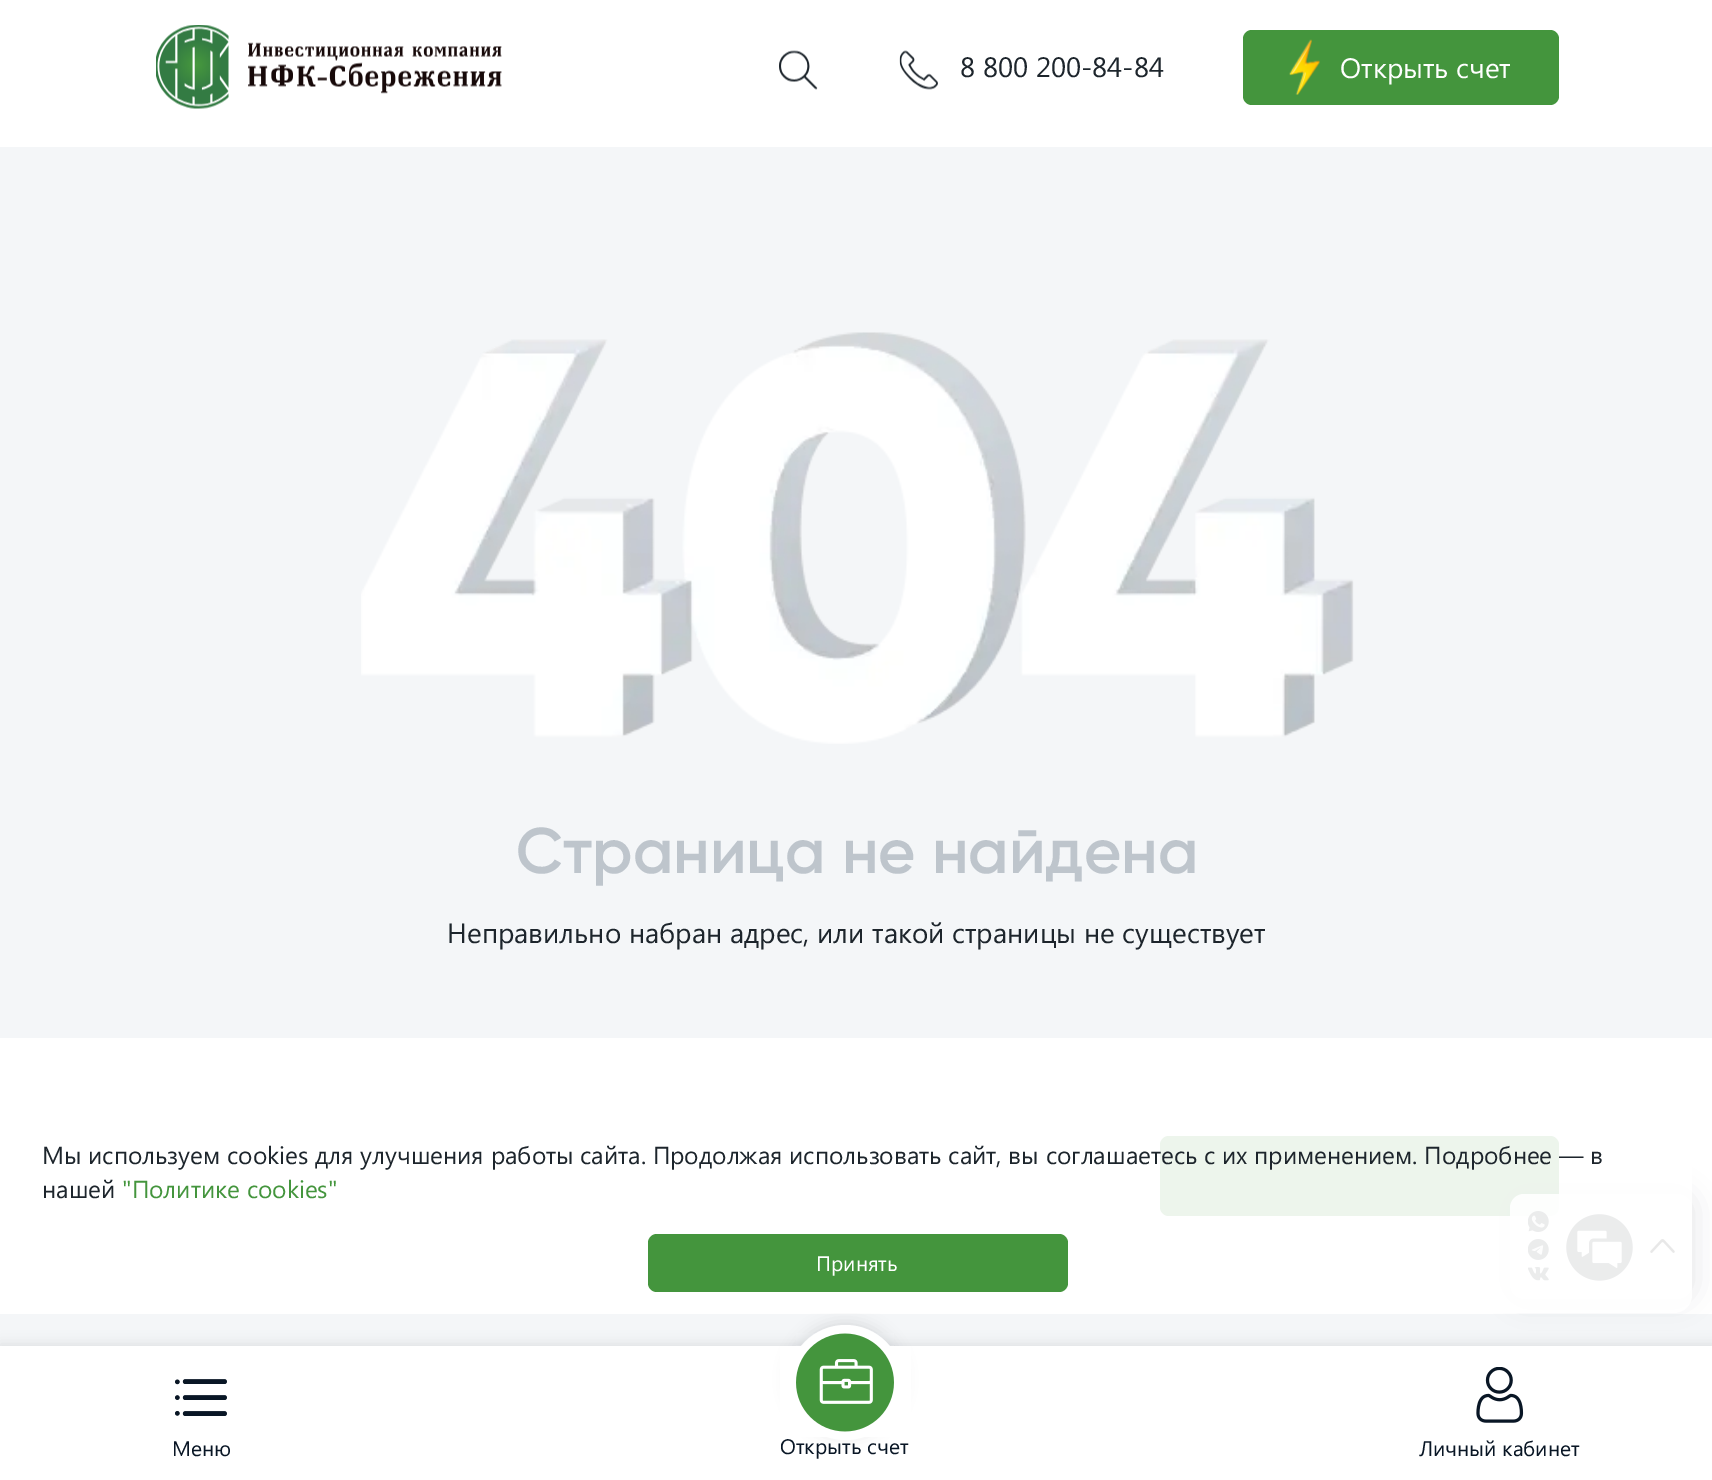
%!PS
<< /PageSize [1712 1480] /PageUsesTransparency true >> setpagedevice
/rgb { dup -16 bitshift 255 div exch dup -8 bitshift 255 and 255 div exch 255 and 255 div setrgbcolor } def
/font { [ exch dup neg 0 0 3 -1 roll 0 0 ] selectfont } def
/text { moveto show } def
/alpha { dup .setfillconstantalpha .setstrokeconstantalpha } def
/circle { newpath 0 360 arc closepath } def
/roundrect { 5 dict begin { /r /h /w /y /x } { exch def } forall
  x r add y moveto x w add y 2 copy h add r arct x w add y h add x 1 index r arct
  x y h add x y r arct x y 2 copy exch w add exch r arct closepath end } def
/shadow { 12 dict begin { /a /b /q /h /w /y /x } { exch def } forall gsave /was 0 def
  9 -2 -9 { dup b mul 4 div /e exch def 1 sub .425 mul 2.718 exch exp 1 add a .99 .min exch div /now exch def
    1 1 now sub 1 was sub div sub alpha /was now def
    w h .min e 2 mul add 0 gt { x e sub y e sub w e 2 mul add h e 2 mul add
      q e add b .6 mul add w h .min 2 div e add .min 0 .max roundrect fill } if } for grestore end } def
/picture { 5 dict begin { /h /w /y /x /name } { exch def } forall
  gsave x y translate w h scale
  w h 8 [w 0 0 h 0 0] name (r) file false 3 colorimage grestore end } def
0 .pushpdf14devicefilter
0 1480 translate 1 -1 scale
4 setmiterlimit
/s1 { /SegoeUI-Regular 28 font 16#1D252C rgb } def
/s2 { /SegoeUI-Regular 28 font 16#FFFFFF rgb } def
/s3 { /Gilroy-SemiBold 64.25 font 16#BEC5CC rgb } def
/s4 { /SegoeUI-Regular 24.5 font 16#1D252C rgb } def
/s5 { /SegoeUI-Regular 24.5 font 16#44953D rgb } def
/s6 { /SegoeUI-Regular 21 font 16#FFFFFF rgb } def
/s7 { /SegoeUI-Regular 21 font 16#091625 rgb } def
16#FFFFFF rgb
0 0 1712 1480 rectfill
(pic1.raw) 156 25 73 84 picture
(pic2.raw) 248 42 254 52 picture
(pic3.raw) 779 50 39 40 picture
(pic4.raw) 899 50 39 40 picture
s1
(8 800 200-84-84) 960 77 text
16#44953D rgb
1243 30 316 75 9 roundrect fill
(pic5.raw) 1289 39 31 56 picture
s2
(Открыть счет) 1340 78 text
16#F4F6F8 rgb
0 147 1712 891 rectfill
(pic6.raw) 361 332 993 412 picture
s3
(Страница не найдена) 516 873 text
s1
(Неправильно набран адрес, или такой страницы не существует) 447 943 text
16#44953D rgb
1160 1136 399 80 9 roundrect fill
16#F4F6F8 rgb
0 1314 1712 32 rectfill
gsave
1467 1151 moveto 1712 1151 lineto 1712 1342 lineto 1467 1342 lineto closepath 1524 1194 moveto 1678 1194 lineto 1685.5 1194 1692 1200.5 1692 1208 curveto 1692 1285 lineto 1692 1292.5 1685.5 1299 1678 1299 curveto 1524 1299 lineto 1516.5 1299 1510 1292.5 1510 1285 curveto 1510 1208 lineto 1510 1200.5 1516.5 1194 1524 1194 curveto closepath eoclip newpath
16#1D252C rgb
1510 1194 182 105 14 14 0.12 shadow
grestore
0.9 alpha
16#FFFFFF rgb
1510 1194 182 105 14 roundrect fill
1 alpha
(pic7.raw) 1528 1211 21 21 picture
(pic8.raw) 1528 1239 21 21 picture
(pic9.raw) 1528 1267 21 14 picture
(pic10.raw) 1566 1214 67 67 picture
(pic11.raw) 1650 1239 25 14 picture
16#1D252C rgb
0 1344 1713 135 0 6 0.11 shadow
16#FFFFFF rgb
0 1346 1712 134 rectfill
16#1D252C rgb
788 1321 115 116 57.5 7 0.11 shadow
0.9 alpha
16#FFFFFF rgb
21 1117 1671 196 18 roundrect fill
1 alpha
s4
(Мы используем cookies для улучшения работы сайта. Продолжая использовать сайт, вы соглашаетесь с их применением. Подробнее — в) 42 1164 text
(нашей) 42 1198 text
s5
("Политике cookies") 122 1198 text
648 1234 420 58 9 roundrect fill
s6
(Принять) 816 1271 text
(pic12.raw) 175 1379 52 37 picture
s7
(Меню) 172 1456 text
16#FFFFFF rgb
845.5 1382.5 57.5 circle fill
780 1346 131 91 rectfill
(pic13.raw) 796 1333 98 99 picture
s7
(Открыть счет) 780 1454 text
(pic14.raw) 1476 1367 48 56 picture
(Личный кабинет) 1419 1456 text
.poppdf14devicefilter showpage
